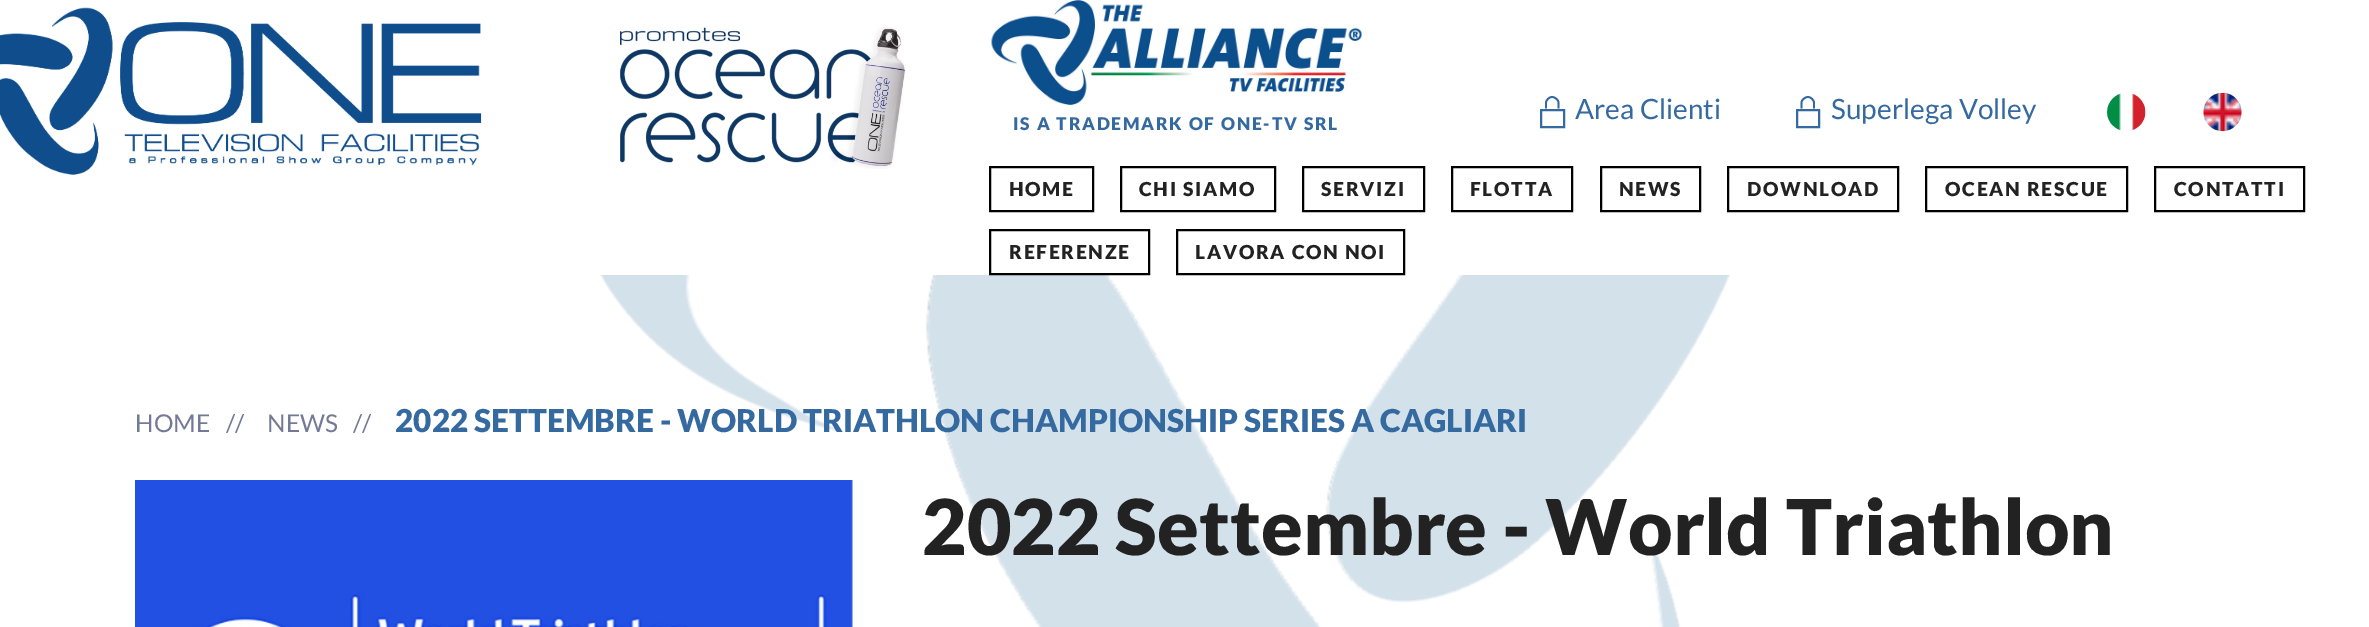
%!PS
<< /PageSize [2369 627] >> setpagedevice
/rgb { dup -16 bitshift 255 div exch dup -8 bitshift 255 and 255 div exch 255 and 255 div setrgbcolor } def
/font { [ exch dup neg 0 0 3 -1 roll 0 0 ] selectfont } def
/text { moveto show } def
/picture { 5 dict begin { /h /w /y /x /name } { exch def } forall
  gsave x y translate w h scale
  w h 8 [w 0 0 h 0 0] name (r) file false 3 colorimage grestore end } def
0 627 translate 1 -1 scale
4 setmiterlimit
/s1 { /Lato-Regular 28 font 16#356AA0 rgb } def
/s2 { /Lato-Regular 24.5 font 16#747A96 rgb } def
/s3 { /Lato-Black 31.5 font 16#356AA0 rgb } def
/s4 { /Lato-Black 77 font 16#222222 rgb } def
16#FFFFFF rgb
0 0 2369 627 rectfill
(pic1.raw) 600 275 1131 352 picture
(pic2.raw) 0 7 482 168 picture
(pic3.raw) 620 27 286 142 picture
(pic4.raw) 991 0 371 105 picture
/Lato-Black 17.5 font
16#356AA0 rgb
1013 130 moveto 1.75 0 (IS A TRADEMARK OF ONE-TV SRL) ashow
1.8 setlinewidth
1546 108.5 moveto 1546 103 lineto 1546 100 1549 97 1552 97 curveto 1555.5 97 1558.5 100 1558.5 103 curveto 1558.5 108.5 lineto stroke
2 setlinewidth
1541 110 23 17 rectstroke
s1
(Area Clienti) 1575 119 text
1.8 setlinewidth
1801.5 108.5 moveto 1801.5 103 lineto 1801.5 100 1804.5 97 1808 97 curveto 1811 97 1814 100 1814 103 curveto 1814 108.5 lineto stroke
2 setlinewidth
1797 110 22 17 rectstroke
(Superlega Volley) 1831 119 text
(pic5.raw) 2107 93 39 38 picture
(pic6.raw) 2203 92 39 40 picture
16#000000 rgb
990 167 103 44 rectstroke
/Lato-Black 19.25 font
16#222222 rgb
1009 196 moveto 1.75 0 (HOME) ashow
16#000000 rgb
1121 167 154 44 rectstroke
16#222222 rgb
1139 196 moveto 1.75 0 (CHI SIAMO) ashow
16#000000 rgb
1303 167 121 44 rectstroke
16#222222 rgb
1321 196 moveto 1.75 0 (SERVIZI) ashow
16#000000 rgb
1452 167 120 44 rectstroke
16#222222 rgb
1470 196 moveto 1.75 0 (FLOTTA) ashow
16#000000 rgb
1601 167 99 44 rectstroke
16#222222 rgb
1619 196 moveto 1.75 0 (NEWS) ashow
16#000000 rgb
1728 167 170 44 rectstroke
16#222222 rgb
1747 196 moveto 1.75 0 (DOWNLOAD) ashow
16#000000 rgb
1926 167 201 44 rectstroke
16#222222 rgb
1945 196 moveto 1.75 0 (OCEAN RESCUE) ashow
16#000000 rgb
2155 167 149 44 rectstroke
16#222222 rgb
2174 196 moveto 1.75 0 (CONTATTI) ashow
16#000000 rgb
990 230 159 44 rectstroke
16#222222 rgb
1009 259 moveto 1.75 0 (REFERENZE) ashow
16#000000 rgb
1177 230 227 44 rectstroke
16#222222 rgb
1195 259 moveto 1.75 0 (LAVORA CON NOI) ashow
s2
(HOME) 135 432 text
(//) 226 432 text
(NEWS) 267 432 text
(//) 353 432 text
s3
(2022 SETTEMBRE - WORLD TRIATHLON CHAMPIONSHIP SERIES A CAGLIARI) 395 432 text
(pic7.raw) 135 480 718 147 picture
s4
(2022 Settembre - World Triathlon) 922 555 text
showpage
